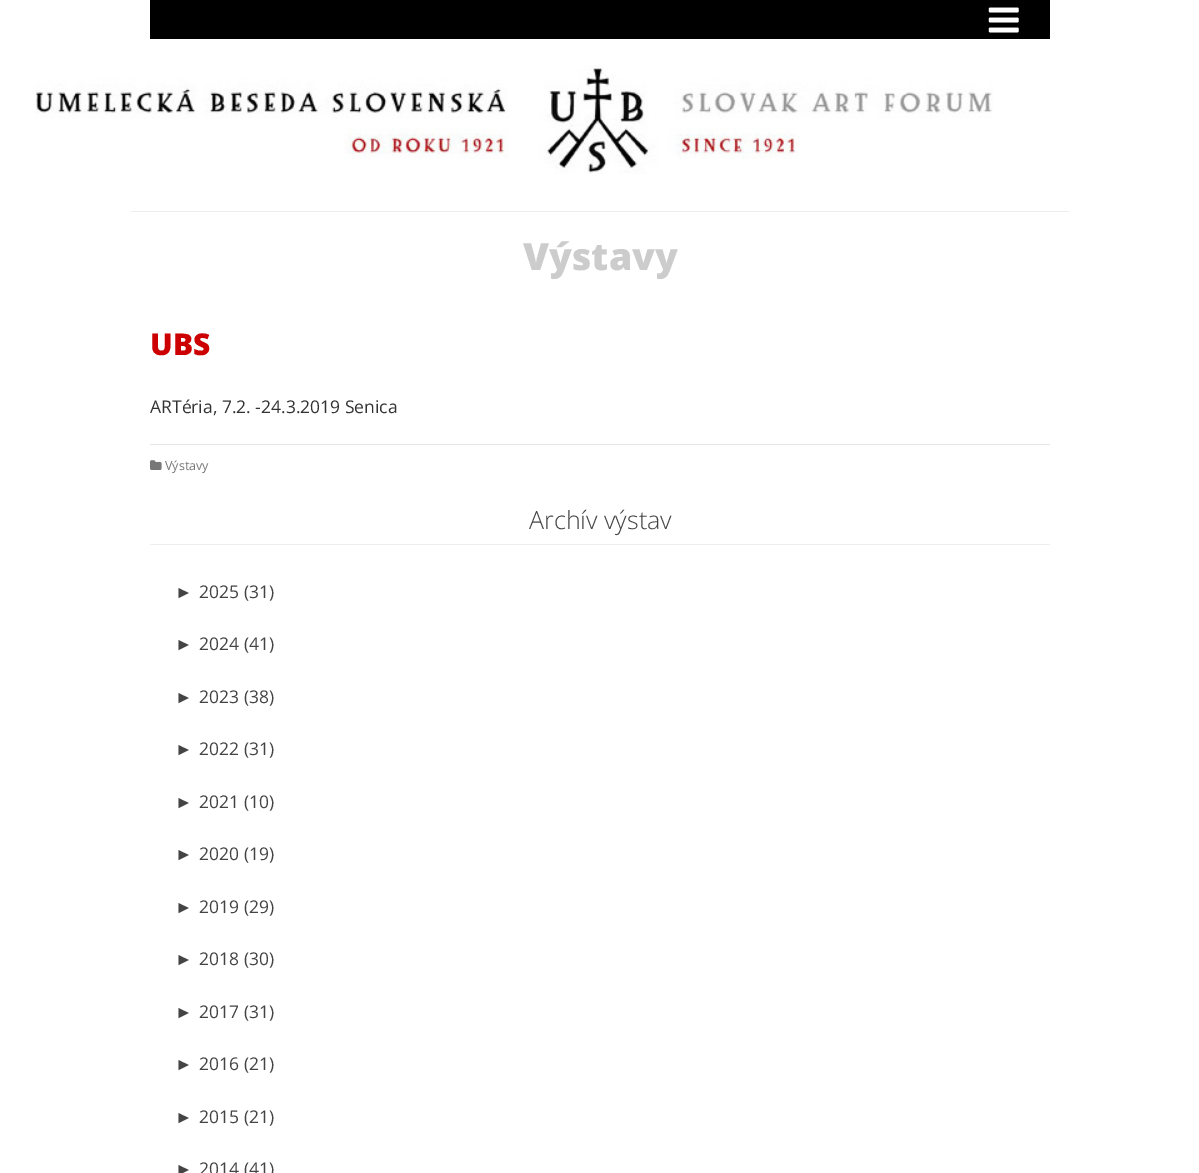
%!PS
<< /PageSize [1199 1173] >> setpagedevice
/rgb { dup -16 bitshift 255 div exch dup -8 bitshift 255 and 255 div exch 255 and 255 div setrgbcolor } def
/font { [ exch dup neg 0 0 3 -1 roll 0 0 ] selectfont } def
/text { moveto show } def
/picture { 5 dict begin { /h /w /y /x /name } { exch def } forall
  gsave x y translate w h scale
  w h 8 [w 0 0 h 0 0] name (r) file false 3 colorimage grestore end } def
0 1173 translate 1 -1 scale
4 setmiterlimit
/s1 { /OpenSans-ExtraBold 37.5 font 16#CCCCCC rgb } def
/s2 { /OpenSans-ExtraBold 30 font 16#CC0000 rgb } def
/s3 { /OpenSans-Regular 17.5 font 16#333333 rgb } def
/s4 { /OpenSans-Regular 12.5 font 16#777777 rgb } def
/s5 { /OpenSans-Light 25 font 16#444444 rgb } def
/s6 { /LiberationSerif-Regular 17.5 font 16#444444 rgb } def
/s7 { /OpenSans-Regular 17.5 font 16#444444 rgb } def
16#FFFFFF rgb
0 0 1199 1173 rectfill
(pic1.raw) 35 65 958 109 picture
16#EEEEEE rgb
131 211 938 1 rectfill
16#000000 rgb
150 0 900 39 rectfill
(pic2.raw) 988 7 31 26 picture
s1
(Výstavy) 523 270 text
s2
(UBS) 150 355 text
s3
(ARTéria, 7.2. -24.3.2019 Senica) 150 413 text
16#E6E6E6 rgb
150 444 900 1 rectfill
(pic3.raw) 150 460 12 10 picture
s4
(Výstavy) 165 470 text
s5
(Archív výstav) 529 529 text
16#EEEEEE rgb
150 544 900 1 rectfill
s6
(►) 175 598 text
s7
(2025 \(31\)) 199 598 text
s6
(►) 175 650 text
s7
(2024 \(41\)) 199 650 text
s6
(►) 175 703 text
s7
(2023 \(38\)) 199 703 text
s6
(►) 175 755 text
s7
(2022 \(31\)) 199 755 text
s6
(►) 175 808 text
s7
(2021 \(10\)) 199 808 text
s6
(►) 175 860 text
s7
(2020 \(19\)) 199 860 text
s6
(►) 175 913 text
s7
(2019 \(29\)) 199 913 text
s6
(►) 175 965 text
s7
(2018 \(30\)) 199 965 text
s6
(►) 175 1018 text
s7
(2017 \(31\)) 199 1018 text
s6
(►) 175 1070 text
s7
(2016 \(21\)) 199 1070 text
s6
(►) 175 1123 text
s7
(2015 \(21\)) 199 1123 text
s6
(►) 175 1175 text
s7
(2014 \(41\)) 199 1175 text
showpage
